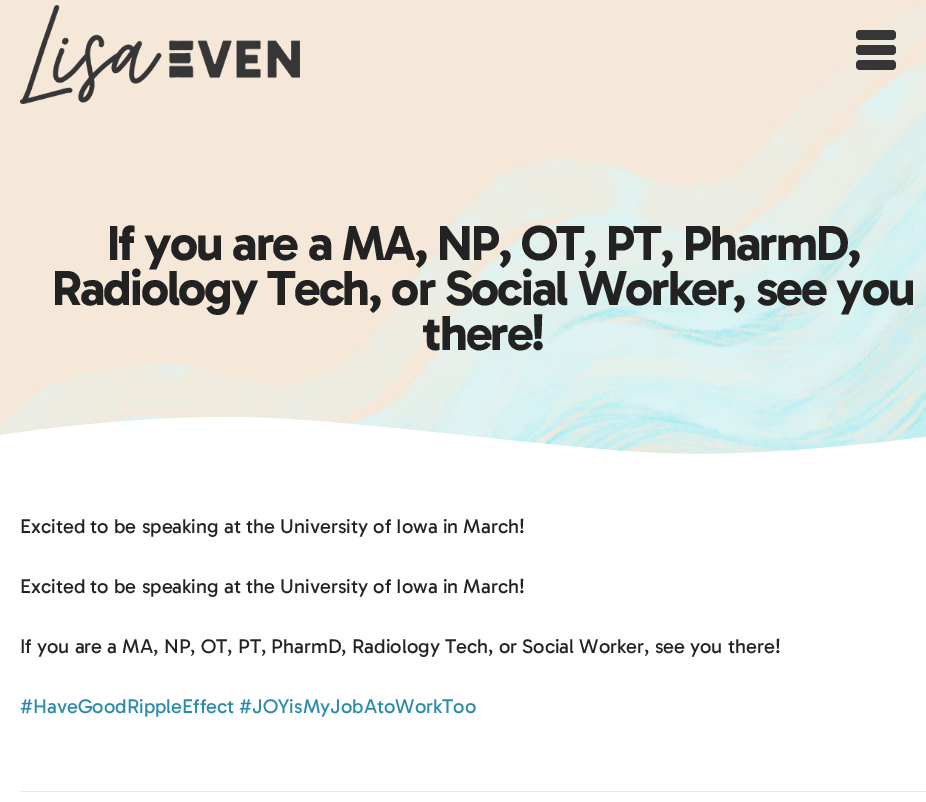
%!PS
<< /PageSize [926 802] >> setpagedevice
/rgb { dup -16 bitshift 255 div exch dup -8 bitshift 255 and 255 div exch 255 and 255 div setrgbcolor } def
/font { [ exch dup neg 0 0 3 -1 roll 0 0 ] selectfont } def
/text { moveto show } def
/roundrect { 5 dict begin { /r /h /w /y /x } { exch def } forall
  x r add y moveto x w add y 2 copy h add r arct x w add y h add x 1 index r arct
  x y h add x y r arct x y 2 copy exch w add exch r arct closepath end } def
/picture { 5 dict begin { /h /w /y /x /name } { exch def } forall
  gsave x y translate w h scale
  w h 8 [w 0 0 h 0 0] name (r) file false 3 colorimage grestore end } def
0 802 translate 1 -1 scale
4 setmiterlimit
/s1 { /Gabarito-Regular 20 font 16#222222 rgb } def
/s2 { /Gabarito-Regular 20 font 16#2C8BAC rgb } def
16#FFFFFF rgb
0 0 926 802 rectfill
(pic2.raw) 0 0 926 454 picture
(pic1.raw) 20 5 280 99 picture
16#373637 rgb
856 45 40 10 4 roundrect fill
856 30 40 10 4 roundrect fill
856 60 40 10 4 roundrect fill
/Gabarito-Bold 50 font
16#222222 rgb
107 260 moveto -2 0 (If you are a MA, NP, OT, PT, PharmD,) ashow
52 305 moveto -2 0 (Radiology Tech, or Social Worker, see you) ashow
422 350 moveto -2 0 (there!) ashow
gsave
0 417 926 40 rectclip
16#FFFFFF rgb
-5 436 moveto -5 436 109 417 230 417 curveto 351 417 580 454 693 454 curveto 807 454 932 436 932 436 curveto 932 471 lineto -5 471 lineto closepath fill
grestore
s1
(Excited to be speaking at the University of Iowa in March!) 20 533 text
(Excited to be speaking at the University of Iowa in March!) 20 593 text
(If you are a MA, NP, OT, PT, PharmD, Radiology Tech, or Social Worker, see you there!) 20 653 text
s2
(#HaveGoodRippleEffect #JOYisMyJobAtoWorkToo) 20 713 text
16#E8E8E8 rgb
20 791 906 1 rectfill
showpage
